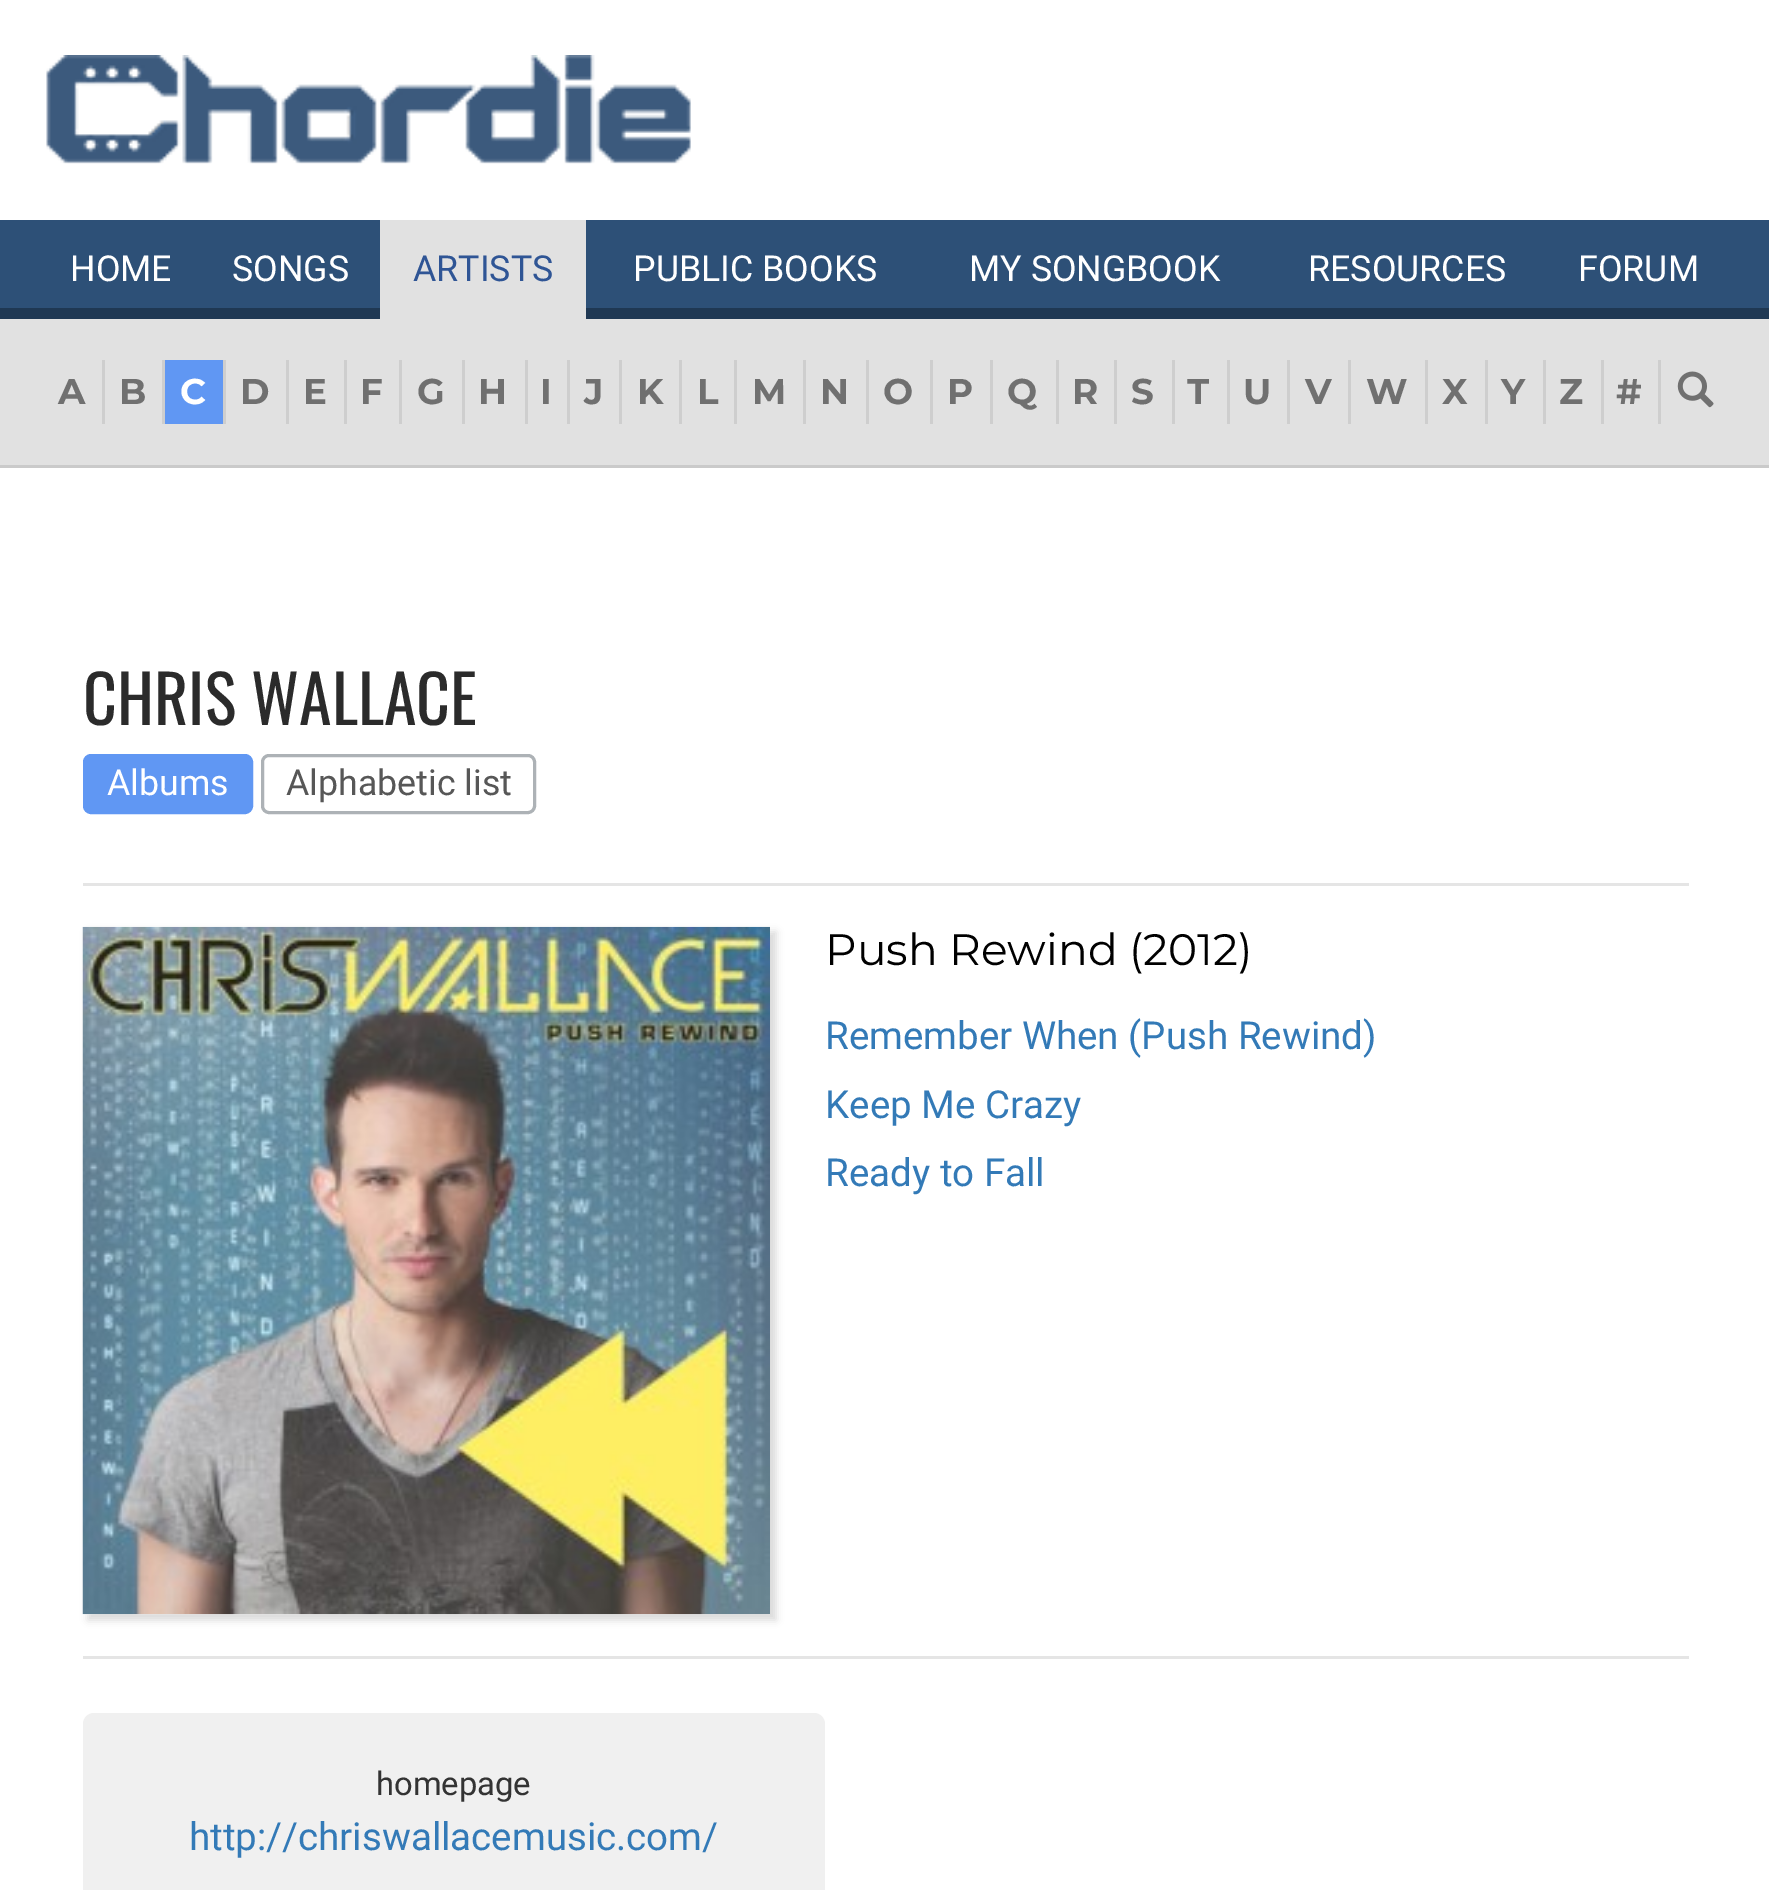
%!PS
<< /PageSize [1769 1890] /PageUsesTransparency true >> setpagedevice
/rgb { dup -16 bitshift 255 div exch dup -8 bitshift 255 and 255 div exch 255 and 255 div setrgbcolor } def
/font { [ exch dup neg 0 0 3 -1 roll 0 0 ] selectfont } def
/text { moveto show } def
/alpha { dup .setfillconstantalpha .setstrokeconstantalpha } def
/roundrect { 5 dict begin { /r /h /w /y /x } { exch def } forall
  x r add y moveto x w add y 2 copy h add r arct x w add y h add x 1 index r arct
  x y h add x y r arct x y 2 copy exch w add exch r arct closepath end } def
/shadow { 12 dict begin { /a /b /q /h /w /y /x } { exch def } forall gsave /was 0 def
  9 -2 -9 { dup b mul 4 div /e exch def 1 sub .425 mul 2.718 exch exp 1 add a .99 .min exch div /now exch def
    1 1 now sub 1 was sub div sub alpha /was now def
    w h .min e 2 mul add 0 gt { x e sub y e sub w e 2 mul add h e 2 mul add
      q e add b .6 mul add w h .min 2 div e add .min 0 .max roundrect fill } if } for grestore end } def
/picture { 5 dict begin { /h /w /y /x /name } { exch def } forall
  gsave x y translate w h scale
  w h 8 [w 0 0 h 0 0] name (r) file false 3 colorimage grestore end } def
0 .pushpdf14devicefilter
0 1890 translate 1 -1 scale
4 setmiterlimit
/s1 { /Roboto-Regular 35.75 font 16#FFFFFF rgb } def
/s2 { /Roboto-Regular 35.75 font 16#2F5595 rgb } def
/s3 { /Montserrat-Bold 35.75 font 16#707070 rgb } def
/s4 { /Montserrat-Bold 35.75 font 16#FFFFFF rgb } def
/s5 { /Oswald-Regular 66 font 16#2B2B2B rgb } def
/s6 { /Roboto-Regular 35.75 font 16#575757 rgb } def
/s7 { /Montserrat-Regular 44 font 16#000000 rgb } def
/s8 { /Roboto-Regular 38.5 font 16#337AB7 rgb } def
/s9 { /Roboto-Regular 32.75 font 16#333333 rgb } def
16#FFFFFF rgb
0 0 1769 1890 rectfill
(pic1.raw) 46 55 645 109 picture
16#2D5077 rgb
0 220 1769 88 rectfill
16#1F3853 rgb
0 308 1769 11 rectfill
s1
(HOME) 70 281 text
(SONGS) 232 281 text
16#E1E1E1 rgb
380 220 206 99 rectfill
s2
(ARTISTS) 413 281 text
s1
(PUBLIC BOOKS) 633 281 text
(MY SONGBOOK) 969 281 text
(RESOURCES) 1308 281 text
(FORUM) 1578 281 text
16#E1E1E1 rgb
0 319 1769 146 rectfill
16#CACACA rgb
0 465 1769 3 rectfill
s3
(A) 58 404 text
16#CECECE rgb
102 360 3 64 rectfill
s3
(B) 119 404 text
16#6097F3 rgb
165 360 58 64 rectfill
16#CECECE rgb
162 360 3 64 rectfill
s4
(C) 180 404 text
16#CECECE rgb
223 360 3 64 rectfill
s3
(D) 240 404 text
16#CECECE rgb
286 360 3 64 rectfill
s3
(E) 303 404 text
16#CECECE rgb
344 360 3 64 rectfill
s3
(F) 360 404 text
16#CECECE rgb
399 360 3 64 rectfill
s3
(G) 417 404 text
16#CECECE rgb
462 360 3 64 rectfill
s3
(H) 478 404 text
16#CECECE rgb
525 360 3 64 rectfill
s3
(I) 540 404 text
16#CECECE rgb
567 360 3 64 rectfill
s3
(J) 584 404 text
16#CECECE rgb
619 360 3 64 rectfill
s3
(K) 637 404 text
16#CECECE rgb
679 360 3 64 rectfill
s3
(L) 697 404 text
16#CECECE rgb
734 360 3 64 rectfill
s3
(M) 752 404 text
16#CECECE rgb
803 360 3 64 rectfill
s3
(N) 820 404 text
16#CECECE rgb
866 360 3 64 rectfill
s3
(O) 883 404 text
16#CECECE rgb
930 360 3 64 rectfill
s3
(P) 947 404 text
16#CECECE rgb
990 360 3 64 rectfill
s3
(Q) 1007 404 text
16#CECECE rgb
1056 360 3 64 rectfill
s3
(R) 1072 404 text
16#CECECE rgb
1114 360 3 64 rectfill
s3
(S) 1131 404 text
16#CECECE rgb
1172 360 3 64 rectfill
s3
(T) 1187 404 text
16#CECECE rgb
1227 360 3 64 rectfill
s3
(U) 1243 404 text
16#CECECE rgb
1287 360 3 64 rectfill
s3
(V) 1305 404 text
16#CECECE rgb
1348 360 3 64 rectfill
s3
(W) 1366 404 text
16#CECECE rgb
1425 360 3 64 rectfill
s3
(X) 1442 404 text
16#CECECE rgb
1485 360 3 64 rectfill
s3
(Y) 1501 404 text
16#CECECE rgb
1543 360 3 64 rectfill
s3
(Z) 1559 404 text
16#CECECE rgb
1601 360 3 64 rectfill
s3
(#) 1616 404 text
16#CECECE rgb
1658 360 3 64 rectfill
(pic2.raw) 1677 371 37 37 picture
16#E5E5E5 rgb
83 883 1606 3 rectfill
s5
(CHRIS WALLACE) 83 725 text
16#6097F3 rgb
84.5 755.5 167 57 6.5 roundrect gsave fill grestore
3 setlinewidth
stroke
s1
(Albums) 107 795 text
16#ADB2B6 rgb
262.5 755.5 272 57 6.5 roundrect stroke
s6
(Alphabetic list) 286 795 text
16#E5E5E5 rgb
83 1656 1606 3 rectfill
16#000000 rgb
88 932 688 688 0 4 0.15 shadow
(pic3.raw) 82 926 688 689 picture
s7
(Push Rewind \(2012\)) 825 965 text
s8
(Remember When \(Push Rewind\)) 825 1049 text
(Keep Me Crazy) 825 1118 text
(Ready to Fall) 825 1186 text
16#F0F0F0 rgb
83 1713 742 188 11 roundrect fill
s9
(homepage) 376 1795 text
s8
(http://chriswallacemusic.com/) 189 1850 text
.poppdf14devicefilter showpage
